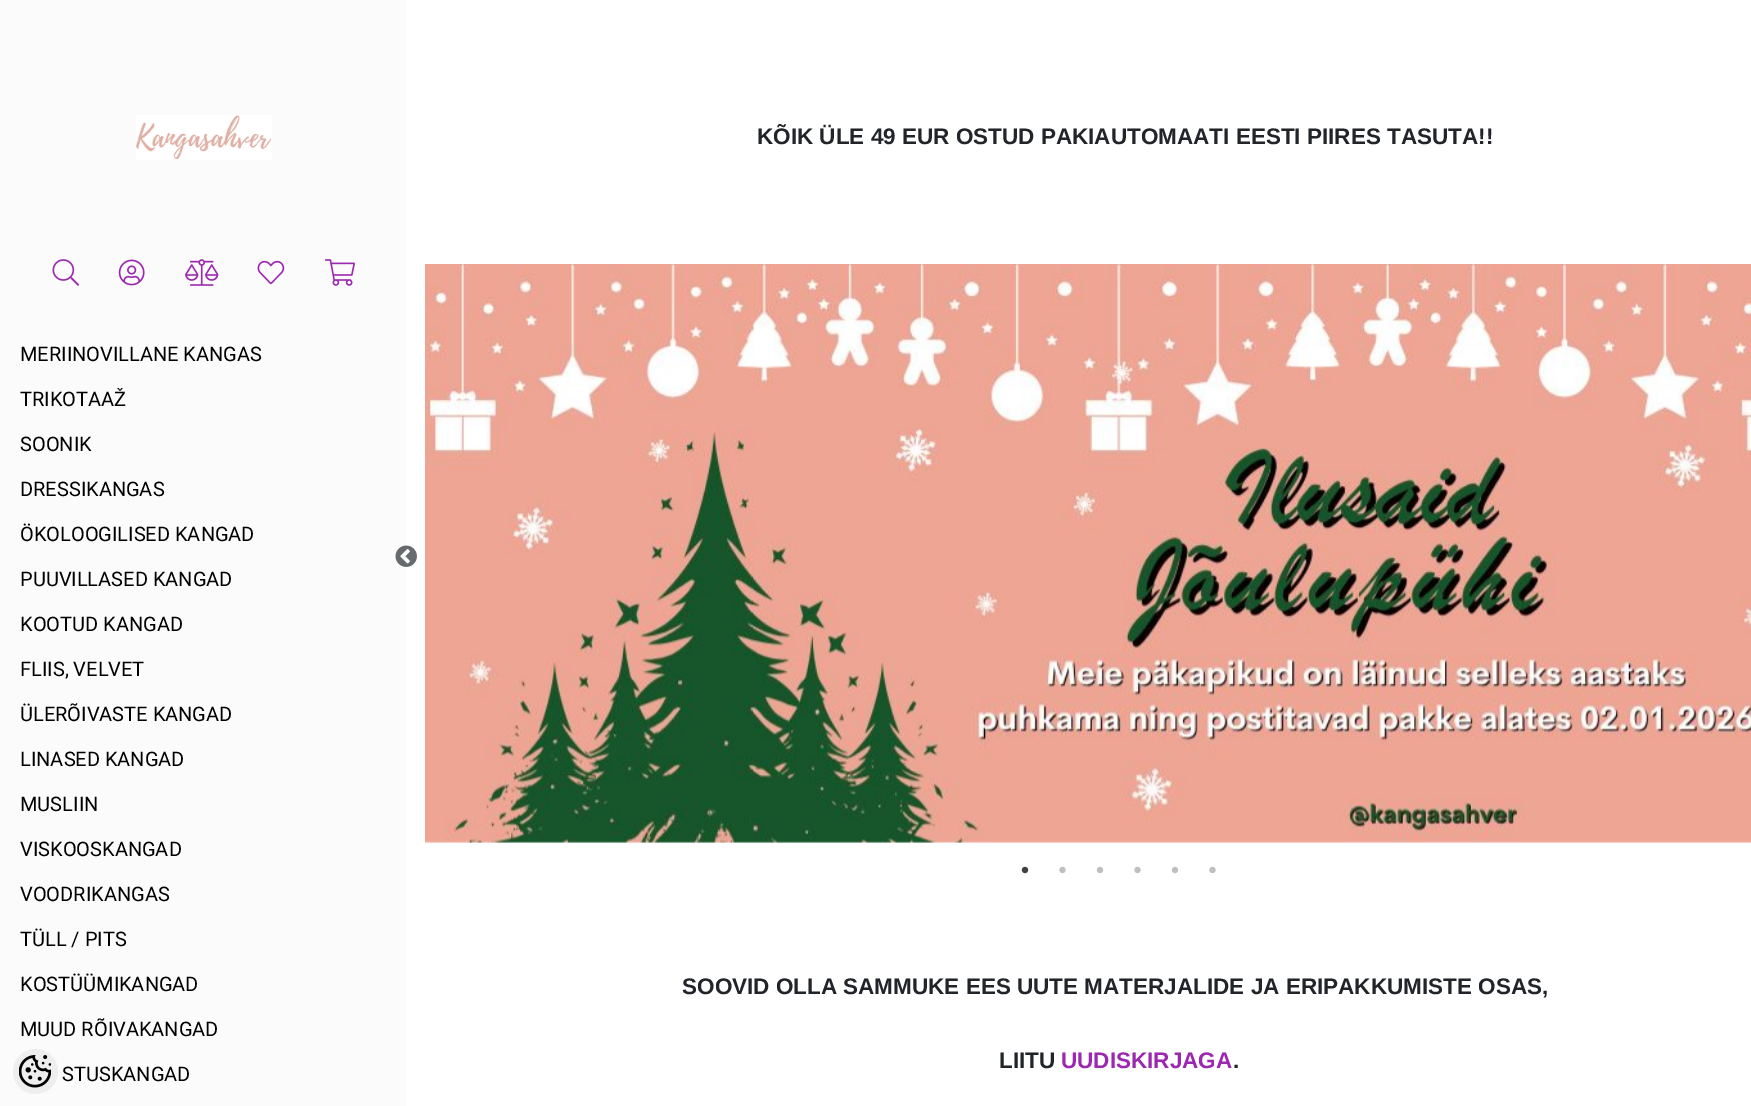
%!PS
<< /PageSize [1751 1106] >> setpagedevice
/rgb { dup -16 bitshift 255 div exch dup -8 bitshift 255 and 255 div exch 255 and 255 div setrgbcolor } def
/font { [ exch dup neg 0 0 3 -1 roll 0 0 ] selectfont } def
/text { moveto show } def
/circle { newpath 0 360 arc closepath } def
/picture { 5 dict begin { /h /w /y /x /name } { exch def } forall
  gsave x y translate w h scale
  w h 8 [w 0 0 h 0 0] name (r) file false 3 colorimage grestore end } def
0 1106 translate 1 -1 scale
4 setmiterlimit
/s1 { /Roboto-Regular 20 font 16#000000 rgb } def
/s2 { /LiberationSans-Bold 22.5 font 16#212529 rgb } def
/s3 { /LiberationSans-Bold 22.5 font 16#9C28B1 rgb } def
16#FFFFFF rgb
0 0 1751 1106 rectfill
16#FBFBFB rgb
0 0 406 1106 rectfill
(pic1.raw) 136 115 136 45 picture
(pic2.raw) 52 259 28 27 picture
(pic3.raw) 118 259 27 27 picture
(pic4.raw) 185 259 34 27 picture
(pic5.raw) 257 260 28 25 picture
(pic6.raw) 325 259 30 27 picture
s1
(MERIINOVILLANE KANGAS) 20 361 text
(TRIKOTAAŽ) 20 406 text
(SOONIK) 20 451 text
(DRESSIKANGAS) 20 496 text
(ÖKOLOOGILISED KANGAD) 20 541 text
(PUUVILLASED KANGAD) 20 586 text
(KOOTUD KANGAD) 20 631 text
(FLIIS, VELVET) 20 676 text
(ÜLERÕIVASTE KANGAD) 20 721 text
(LINASED KANGAD) 20 766 text
(MUSLIIN) 20 811 text
(VISKOOSKANGAD) 20 856 text
(VOODRIKANGAS) 20 901 text
(TÜLL / PITS) 20 946 text
(KOSTÜÜMIKANGAD) 20 991 text
(MUUD RÕIVAKANGAD) 20 1036 text
(STUSKANGAD) 62 1081 text
s2
(KÕIK ÜLE 49 EUR OSTUD PAKIAUTOMAATI EESTI PIIRES TASUTA!!) 757 144 text
(pic7.raw) 395 545 22 22 picture
(pic8.raw) 425 264 1326 579 picture
(pic9.raw) 1021 866 8 8 picture
(pic10.raw) 1059 866 7 8 picture
(pic11.raw) 1096 866 8 8 picture
(pic10.raw) 1134 866 7 8 picture
(pic11.raw) 1171 866 8 8 picture
(pic10.raw) 1209 866 7 8 picture
(SOOVID OLLA SAMMUKE EES UUTE MATERJALIDE JA ERIPAKKUMISTE OSAS,) 682 994 text
(LIITU) 999 1068 text
s3
(UUDISKIRJAGA) 1061 1068 text
s2
(.) 1233 1068 text
16#EEEEEE rgb
35.5 1071.5 22.5 circle fill
(pic12.raw) 19 1055 32 33 picture
showpage
